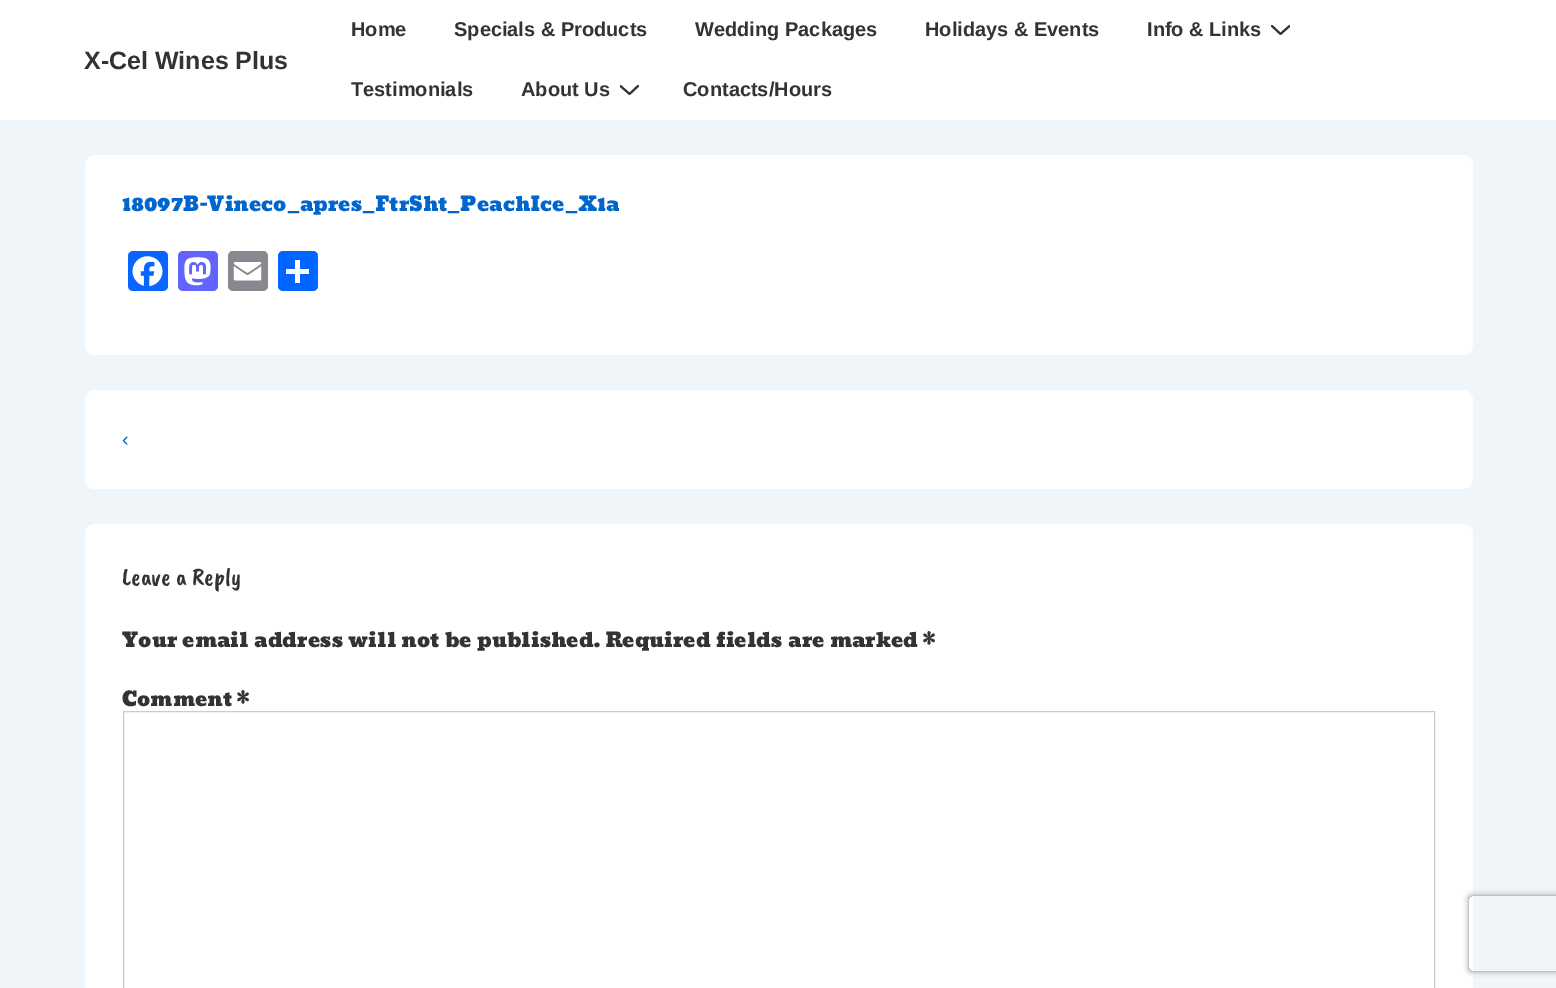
%!PS
<< /PageSize [1556 988] /PageUsesTransparency true >> setpagedevice
/rgb { dup -16 bitshift 255 div exch dup -8 bitshift 255 and 255 div exch 255 and 255 div setrgbcolor } def
/font { [ exch dup neg 0 0 3 -1 roll 0 0 ] selectfont } def
/text { moveto show } def
/alpha { dup .setfillconstantalpha .setstrokeconstantalpha } def
/roundrect { 5 dict begin { /r /h /w /y /x } { exch def } forall
  x r add y moveto x w add y 2 copy h add r arct x w add y h add x 1 index r arct
  x y h add x y r arct x y 2 copy exch w add exch r arct closepath end } def
/shadow { 12 dict begin { /a /b /q /h /w /y /x } { exch def } forall gsave /was 0 def
  9 -2 -9 { dup b mul 4 div /e exch def 1 sub .425 mul 2.718 exch exp 1 add a .99 .min exch div /now exch def
    1 1 now sub 1 was sub div sub alpha /was now def
    w h .min e 2 mul add 0 gt { x e sub y e sub w e 2 mul add h e 2 mul add
      q e add b .6 mul add w h .min 2 div e add .min 0 .max roundrect fill } if } for grestore end } def
/picture { 5 dict begin { /h /w /y /x /name } { exch def } forall
  gsave x y translate w h scale
  w h 8 [w 0 0 h 0 0] name (r) file false 3 colorimage grestore end } def
0 .pushpdf14devicefilter
0 988 translate 1 -1 scale
4 setmiterlimit
/s1 { /LiberationSans-Bold 25 font 16#333333 rgb } def
/s2 { /LiberationSans-Bold 20 font 16#333333 rgb } def
/s3 { /Angkor-Regular 20 font 16#0066CC rgb } def
/s4 { /LiberationSans-Regular 20 font 16#0066CC rgb } def
/s5 { /CaveatBrush-Regular 25 font 16#333333 rgb } def
/s6 { /Angkor-Regular 20 font 16#333333 rgb } def
16#F0F5FA rgb
0 0 1556 988 rectfill
16#FFFFFF rgb
0 0 1556 120 rectfill
s1
(X-Cel Wines Plus) 84 69 text
s2
(Home) 351 36 text
(Specials & Products) 454 36 text
(Wedding Packages) 695 36 text
(Holidays & Events) 925 36 text
(Info & Links) 1147 36 text
gsave
1271 25 19 10 rectclip
2 setlinewidth
1 setlinecap
1272 26 moveto 1280.5 34 lineto 1289.5 26 lineto stroke
grestore
(Testimonials) 351 96 text
(About Us) 521 96 text
gsave
620 85 19 10 rectclip
2 setlinewidth
1 setlinecap
620.5 86 moveto 629.5 94 lineto 638 86 lineto stroke
grestore
(Contacts/Hours) 683 96 text
16#FFFFFF rgb
85 155 1388 200 10 roundrect fill
s3
(18097B-Vineco_apres_FtrSht_PeachIce_X1a) 122 211 text
16#0866FF rgb
128 251 40 40 5 roundrect fill
(pic1.raw) 132 256 31 31 picture
16#6364FF rgb
178 251 40 40 5 roundrect fill
(pic2.raw) 184 257 27 29 picture
16#888990 rgb
228 251 40 40 5 roundrect fill
(pic3.raw) 233 262 29 19 picture
16#0166FF rgb
278 251 40 40 5 roundrect fill
16#FFFFFF rgb
295 260 5 23 rectfill
286 269 23 5 rectfill
85 390 1388 99 10 roundrect fill
s4
(‹) 122 446 text
16#FFFFFF rgb
85 524 1388 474 10 roundrect fill
s5
(Leave a Reply) 122 585 text
s6
(Your email address will not be published. Required fields are marked *) 122 647 text
(Comment *) 122 706 text
16#CCCCCC rgb
123.5 711.5 1311 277 rectstroke
gsave
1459 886 moveto 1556 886 lineto 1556 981 lineto 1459 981 lineto closepath 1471.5 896 moveto 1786.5 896 lineto 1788 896 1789 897 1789 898.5 curveto 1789 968.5 lineto 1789 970 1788 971 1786.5 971 curveto 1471.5 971 lineto 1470 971 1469 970 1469 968.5 curveto 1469 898.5 lineto 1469 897 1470 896 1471.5 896 curveto closepath eoclip newpath
16#808080 rgb
1469 896 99 75 2.5 3 1 shadow
grestore
.poppdf14devicefilter showpage
